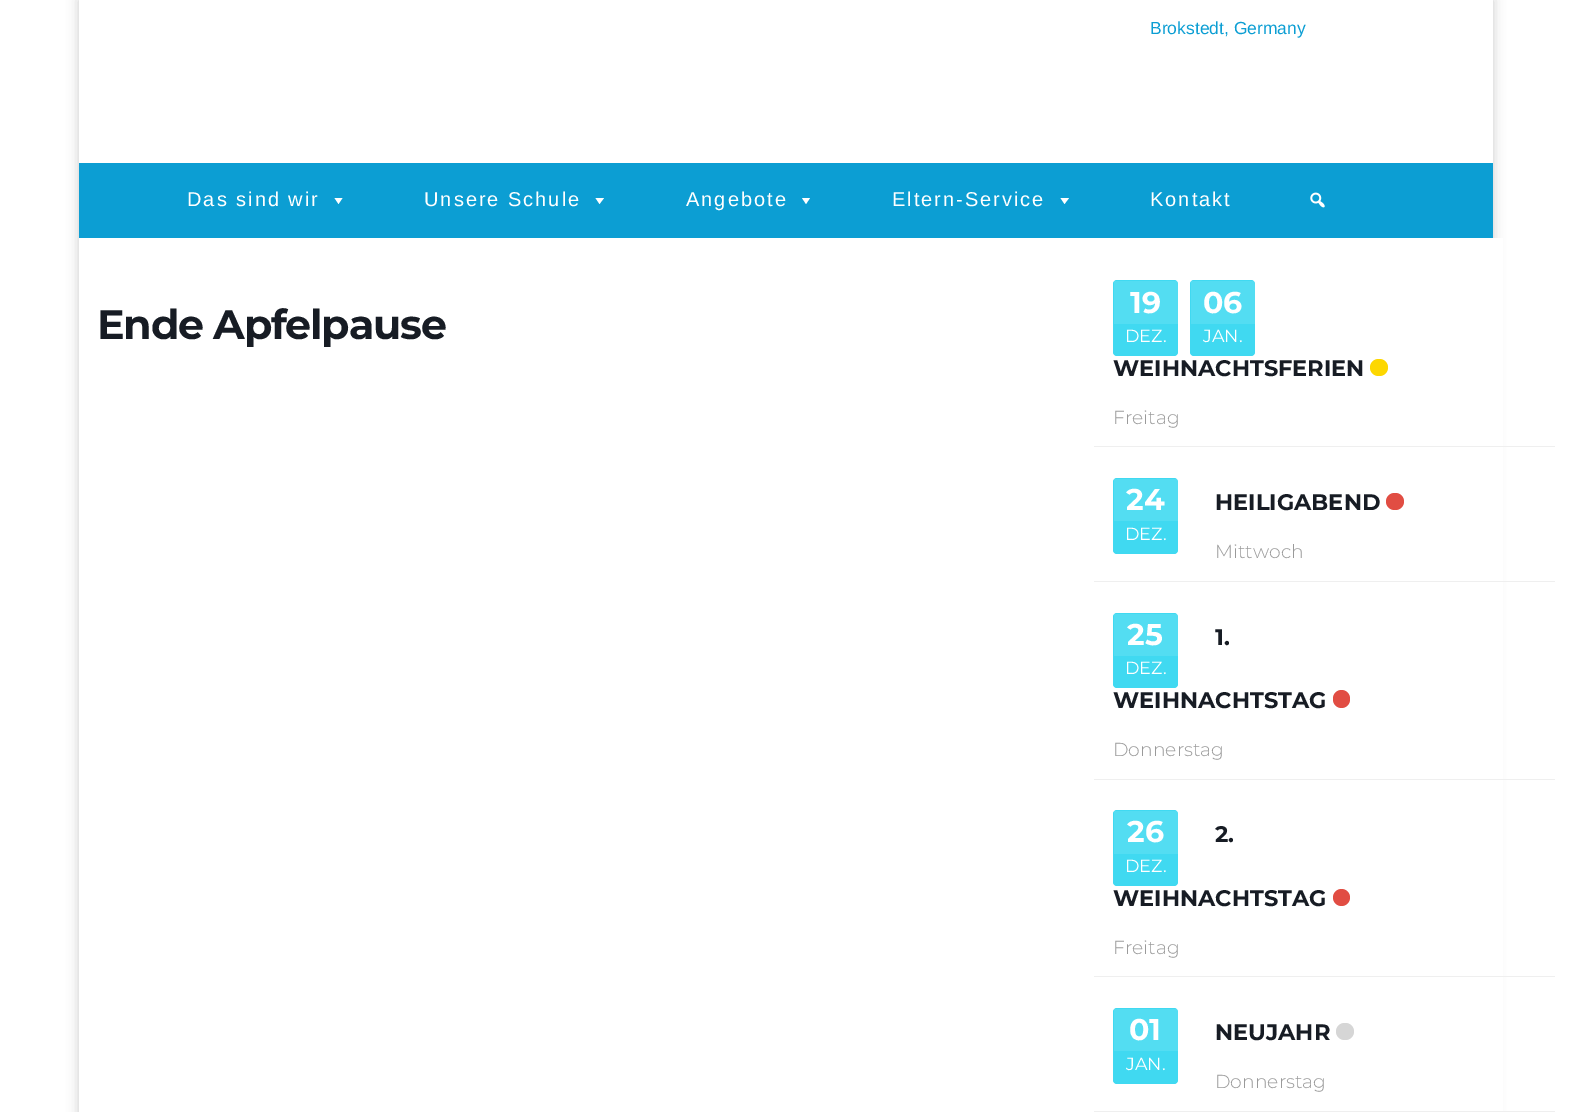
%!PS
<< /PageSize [1571 1112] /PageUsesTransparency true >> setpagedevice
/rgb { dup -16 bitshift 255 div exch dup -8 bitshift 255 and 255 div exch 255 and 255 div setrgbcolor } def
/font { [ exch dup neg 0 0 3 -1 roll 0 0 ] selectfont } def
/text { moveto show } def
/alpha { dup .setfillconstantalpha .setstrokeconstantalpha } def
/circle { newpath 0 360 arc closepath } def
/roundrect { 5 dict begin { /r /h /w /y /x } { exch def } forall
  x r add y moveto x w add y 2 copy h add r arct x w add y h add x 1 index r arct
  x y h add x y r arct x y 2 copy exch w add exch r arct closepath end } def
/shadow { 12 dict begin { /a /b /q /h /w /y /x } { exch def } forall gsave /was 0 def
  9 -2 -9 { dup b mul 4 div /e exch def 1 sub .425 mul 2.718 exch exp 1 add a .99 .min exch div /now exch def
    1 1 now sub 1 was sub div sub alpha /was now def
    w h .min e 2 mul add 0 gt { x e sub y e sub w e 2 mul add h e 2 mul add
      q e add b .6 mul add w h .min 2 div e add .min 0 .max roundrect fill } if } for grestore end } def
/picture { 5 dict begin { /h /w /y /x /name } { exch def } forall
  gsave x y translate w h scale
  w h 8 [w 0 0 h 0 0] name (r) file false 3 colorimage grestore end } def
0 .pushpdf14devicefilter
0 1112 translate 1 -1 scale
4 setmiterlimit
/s1 { /LiberationSans-Regular 17.5 font 16#0C9ED3 rgb } def
/s2 { /Montserrat-Bold 30 font 16#FFFFFF rgb } def
/s3 { /Montserrat-Regular 17.5 font 16#FFFFFF rgb } def
/s4 { /Montserrat-Bold 22.5 font 16#171C24 rgb } def
/s5 { /Montserrat-Light 18.75 font 16#9A9A9A rgb } def
16#FFFFFF rgb
0 0 1571 1112 rectfill
16#000000 rgb
79 0 1414 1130 0 6 0.2 shadow
16#FFFFFF rgb
79 0 1414 163 rectfill
s1
(Brokstedt, Germany) 1150 34 text
79 163 1414 75 rectfill
/LiberationSans-Regular 20 font
16#FFFFFF rgb
187 206 moveto 2 0 (Das sind wir) ashow
342.5 198 moveto 338.5 204 lineto 334.5 198 lineto closepath fill
424 206 moveto 2 0 (Unsere Schule) ashow
604 198 moveto 599.5 204 lineto 595.5 198 lineto closepath fill
686 206 moveto 2 0 (Angebote) ashow
810 198 moveto 806 204 lineto 802 198 lineto closepath fill
892 206 moveto 2 0 (Eltern-Service) ashow
1069 198 moveto 1064.5 204 lineto 1060.5 198 lineto closepath fill
1150 206 moveto 2 0 (Kontakt) ashow
(pic1.raw) 1310 192 15 16 picture
79 238 1424 874 rectfill
/Montserrat-Bold 41.25 font
16#171C24 rgb
97 339 moveto -1.25 0 (Ende Apfelpause) ashow
16#EFEFEF rgb
1094 446 461 1 rectfill
16#40D9F1 rgb
1113 280 65 76 4 roundrect fill
0.1 alpha
16#FFFFFF rgb
1114 281 64 43 rectfill
1 alpha
s2
(19) 1130 313 text
s3
(DEZ.) 1125 342 text
16#40D9F1 rgb
1190 280 65 76 4 roundrect fill
0.1 alpha
16#FFFFFF rgb
1191 281 64 43 rectfill
1 alpha
s2
(06) 1203 313 text
s3
(JAN.) 1203 342 text
s4
(WEIHNACHTSFERIEN) 1113 376 text
16#FDD700 rgb
1370 359 18 17 8.5 roundrect fill
s5
(Freitag) 1113 424 text
16#EFEFEF rgb
1094 581 461 1 rectfill
16#40D9F1 rgb
1113 478 65 76 4 roundrect fill
0.1 alpha
16#FFFFFF rgb
1114 479 64 42 rectfill
1 alpha
s2
(24) 1126 510 text
s3
(DEZ.) 1125 540 text
s4
(HEILIGABEND) 1215 510 text
16#E14D43 rgb
1386 493 18 17 8.5 roundrect fill
s5
(Mittwoch) 1215 558 text
16#EFEFEF rgb
1094 779 461 1 rectfill
16#40D9F1 rgb
1113 613 65 75 4 roundrect fill
0.1 alpha
16#FFFFFF rgb
1114 614 64 42 rectfill
1 alpha
s2
(25) 1127 645 text
s3
(DEZ.) 1125 674 text
s4
(1.) 1215 645 text
(WEIHNACHTSTAG) 1113 708 text
16#E14D43 rgb
1333 690 17 18 8.5 roundrect fill
s5
(Donnerstag) 1113 756 text
16#EFEFEF rgb
1094 976 461 1 rectfill
16#40D9F1 rgb
1113 810 65 76 4 roundrect fill
0.1 alpha
16#FFFFFF rgb
1114 811 64 43 rectfill
1 alpha
s2
(26) 1127 842 text
s3
(DEZ.) 1125 872 text
s4
(2.) 1215 842 text
(WEIHNACHTSTAG) 1113 906 text
16#E14D43 rgb
1341.5 897.5 8.5 circle fill
s5
(Freitag) 1113 954 text
16#EFEFEF rgb
1094 1111 461 1 rectfill
16#40D9F1 rgb
1113 1008 65 76 4 roundrect fill
0.1 alpha
16#FFFFFF rgb
1114 1009 64 42 rectfill
1 alpha
s2
(01) 1129 1040 text
s3
(JAN.) 1126 1070 text
s4
(NEUJAHR) 1215 1040 text
16#D6D6D6 rgb
1336 1023 18 17 8.5 roundrect fill
s5
(Donnerstag) 1215 1088 text
.poppdf14devicefilter showpage
